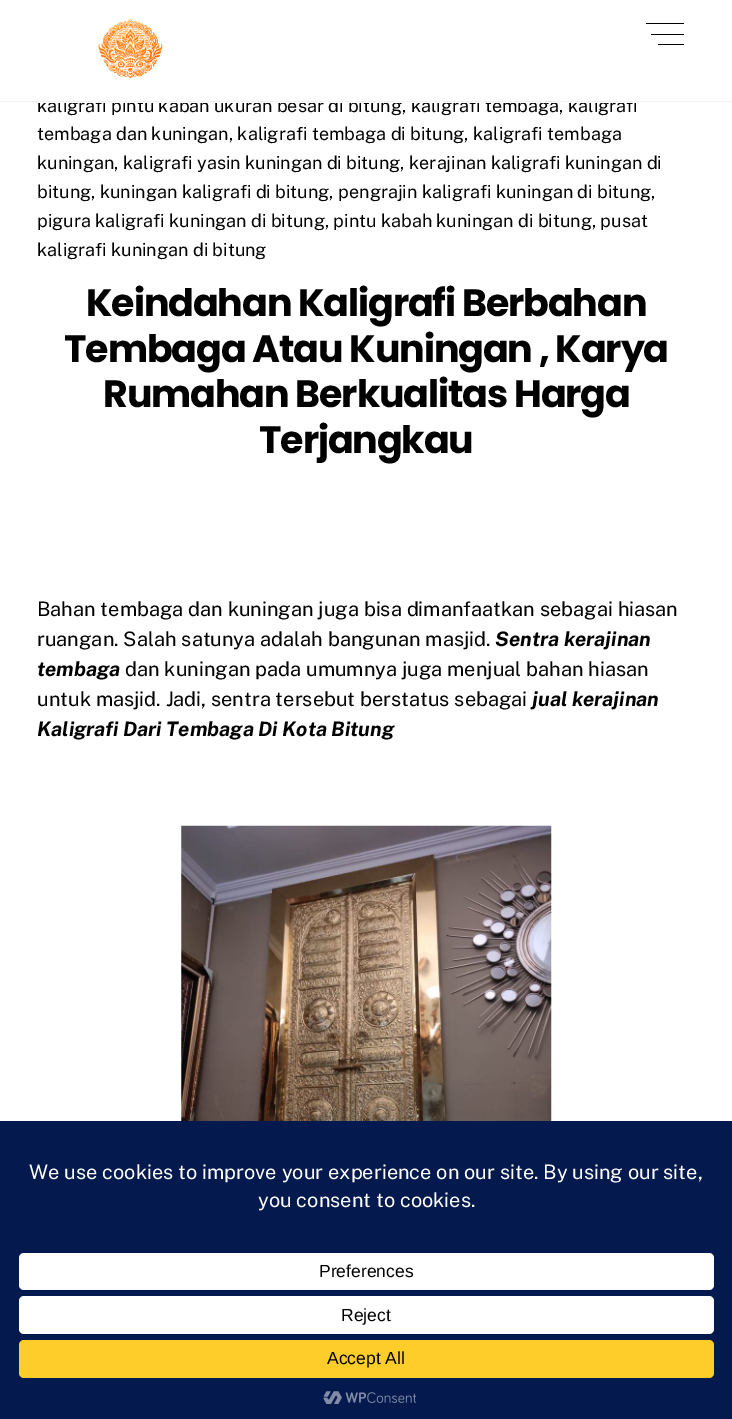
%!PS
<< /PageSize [732 1419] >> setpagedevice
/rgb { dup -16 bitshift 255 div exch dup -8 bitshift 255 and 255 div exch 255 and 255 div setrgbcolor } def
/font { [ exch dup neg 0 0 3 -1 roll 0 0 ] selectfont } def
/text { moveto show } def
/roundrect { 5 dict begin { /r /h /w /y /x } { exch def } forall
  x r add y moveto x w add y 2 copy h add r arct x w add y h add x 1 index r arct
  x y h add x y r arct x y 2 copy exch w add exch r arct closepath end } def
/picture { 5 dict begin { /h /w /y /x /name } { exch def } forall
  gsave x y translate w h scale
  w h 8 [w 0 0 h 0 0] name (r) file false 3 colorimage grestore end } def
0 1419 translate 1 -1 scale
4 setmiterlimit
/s1 { /PublicSans-Regular 18 font 16#000000 rgb } def
/s2 { /PublicSans-Regular 20 font 16#000000 rgb } def
/s3 { /PublicSans-BoldItalic 20 font 16#000000 rgb } def
/s4 { /PublicSans-Regular 20 font 16#FFFFFF rgb } def
/s5 { /LiberationSans-Regular 17.5 font 16#000000 rgb } def
16#FFFFFF rgb
0 0 732 1419 rectfill
s1
(kaligrafi pintu kabah ukuran besar di bitung, kaligrafi tembaga, kaligrafi) 37 112 text
16#FFFFFF rgb
38 98 598 5 rectfill
16#F2F2F2 rgb
0 101 732 1 rectfill
(pic1.raw) 98 19 65 60 picture
16#000000 rgb
646 23 38 1 rectfill
651 34 33 1 rectfill
658 44 26 1 rectfill
(tembaga dan kuningan, kaligrafi tembaga di bitung, kaligrafi tembaga) 37 140 text
(kuningan, kaligrafi yasin kuningan di bitung, kerajinan kaligrafi kuningan di) 37 169 text
(bitung, kuningan kaligrafi di bitung, pengrajin kaligrafi kuningan di bitung,) 37 198 text
(pigura kaligrafi kuningan di bitung, pintu kabah kuningan di bitung, pusat) 37 227 text
(kaligrafi kuningan di bitung) 37 256 text
/Poppins-Bold 38 font
86 316 moveto -1.15 0 (Keindahan Kaligrafi Berbahan) ashow
64 362 moveto -1.15 0 (Tembaga Atau Kuningan , Karya) ashow
103 407 moveto -1.15 0 (Rumahan Berkualitas Harga) ashow
259 453 moveto -1.15 0 (Terjangkau) ashow
s2
(Bahan tembaga dan kuningan juga bisa dimanfaatkan sebagai hiasan) 37 616 text
(ruangan. Salah satunya adalah bangunan masjid.) 37 646 text
s3
(Sentra kerajinan) 495 646 text
(tembaga) 37 676 text
s2
(dan kuningan pada umumnya juga menjual bahan hiasan) 125 676 text
(untuk masjid. Jadi, sentra tersebut berstatus sebagai) 37 706 text
s3
(jual kerajinan) 532 706 text
(Kaligrafi Dari Tembaga Di Kota Bitung) 37 736 text
(pic2.raw) 181 825 371 296 picture
16#04194E rgb
0 1121 732 298 rectfill
s4
(We use cookies to improve your experience on our site. By using our site,) 29 1179 text
(you consent to cookies.) 258 1207 text
19 1253 695 37 5 roundrect fill
s5
(Preferences) 319 1277 text
16#FFFFFF rgb
19 1296 695 38 5 roundrect fill
s5
(Reject) 341 1321 text
16#FFCD2A rgb
19 1340 695 38 5 roundrect fill
s5
(Accept All) 327 1364 text
(pic3.raw) 323 1391 94 13 picture
showpage
